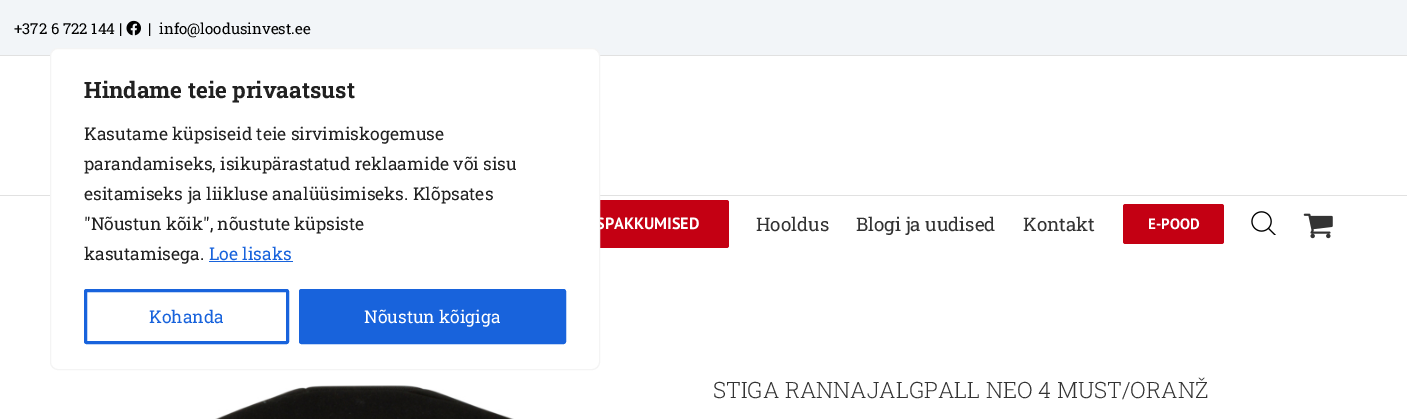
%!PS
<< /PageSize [1407 419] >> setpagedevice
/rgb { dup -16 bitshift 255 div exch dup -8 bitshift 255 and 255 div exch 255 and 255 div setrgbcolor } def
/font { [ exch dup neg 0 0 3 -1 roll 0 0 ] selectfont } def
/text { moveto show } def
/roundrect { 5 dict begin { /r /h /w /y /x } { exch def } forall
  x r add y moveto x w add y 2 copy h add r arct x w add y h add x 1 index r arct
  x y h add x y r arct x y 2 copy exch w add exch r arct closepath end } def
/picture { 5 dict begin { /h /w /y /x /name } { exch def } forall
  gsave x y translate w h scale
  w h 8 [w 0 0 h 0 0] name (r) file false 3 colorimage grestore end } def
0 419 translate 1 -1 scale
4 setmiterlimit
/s1 { /RobotoSlab-Regular 15 font 16#000000 rgb } def
/s2 { /PTSans-Bold 16.25 font 16#FFFFFF rgb } def
/s3 { /RobotoSlab-Regular 18.75 font 16#333333 rgb } def
/s4 { /PTSans-Bold 15 font 16#FFFFFF rgb } def
/s5 { /RobotoSlab-Light 22.5 font 16#333333 rgb } def
/s6 { /RobotoSlab-Bold 22.5 font 16#212121 rgb } def
/s7 { /RobotoSlab-Regular 17.5 font 16#212121 rgb } def
/s8 { /RobotoSlab-Regular 17.5 font 16#1863DC rgb } def
/s9 { /RobotoSlab-Regular 17.5 font 16#FFFFFF rgb } def
16#FFFFFF rgb
0 0 1407 419 rectfill
16#F2F5F8 rgb
0 0 1407 55 rectfill
16#E1E1E1 rgb
0 55 1407 1 rectfill
s1
(+372 6 722 144 |) 14 34 text
(pic1.raw) 126 20 15 16 picture
(|) 148 34 text
(info@loodusinvest.ee) 159 34 text
16#E1E1E1 rgb
0 195 1407 1 rectfill
16#C40013 rgb
516 200 213 48 2.5 roundrect fill
s2
(SPAKKUMISED) 596 229 text
s3
(Hooldus) 756 231 text
(Blogi ja uudised) 856 231 text
(Kontakt) 1023 231 text
16#C40013 rgb
1123 204 101 40 2.5 roundrect fill
s4
(E-POOD) 1148 229 text
(pic2.raw) 1251 211 25 24 picture
(pic3.raw) 1303 213 30 26 picture
(pic4.raw) 215 385 299 34 picture
s5
(STIGA RANNAJALGPALL NEO 4 MUST/ORANŽ) 713 398 text
16#FFFFFF rgb
50.5 48.5 549 321 7.5 roundrect gsave fill grestore
16#F4F4F4 rgb
stroke
s6
(Hindame teie privaatsust) 84 98 text
s7
(Kasutame küpsiseid teie sirvimiskogemuse) 84 140 text
(parandamiseks, isikupärastatud reklaamide või sisu) 84 170 text
(esitamiseks ja liikluse analüüsimiseks. Klõpsates) 84 200 text
("Nõustun kõik", nõustute küpsiste) 84 230 text
(kasutamisega.) 84 260 text
s8
(Loe lisaks) 209 260 text
209 261 84 1 rectfill
3 setlinewidth
85.5 290.5 202 52 1 roundrect stroke
(Kohanda) 149 323 text
300.5 290.5 264 52 1 roundrect gsave fill grestore
stroke
s9
(Nõustun kõigiga) 364 323 text
showpage
